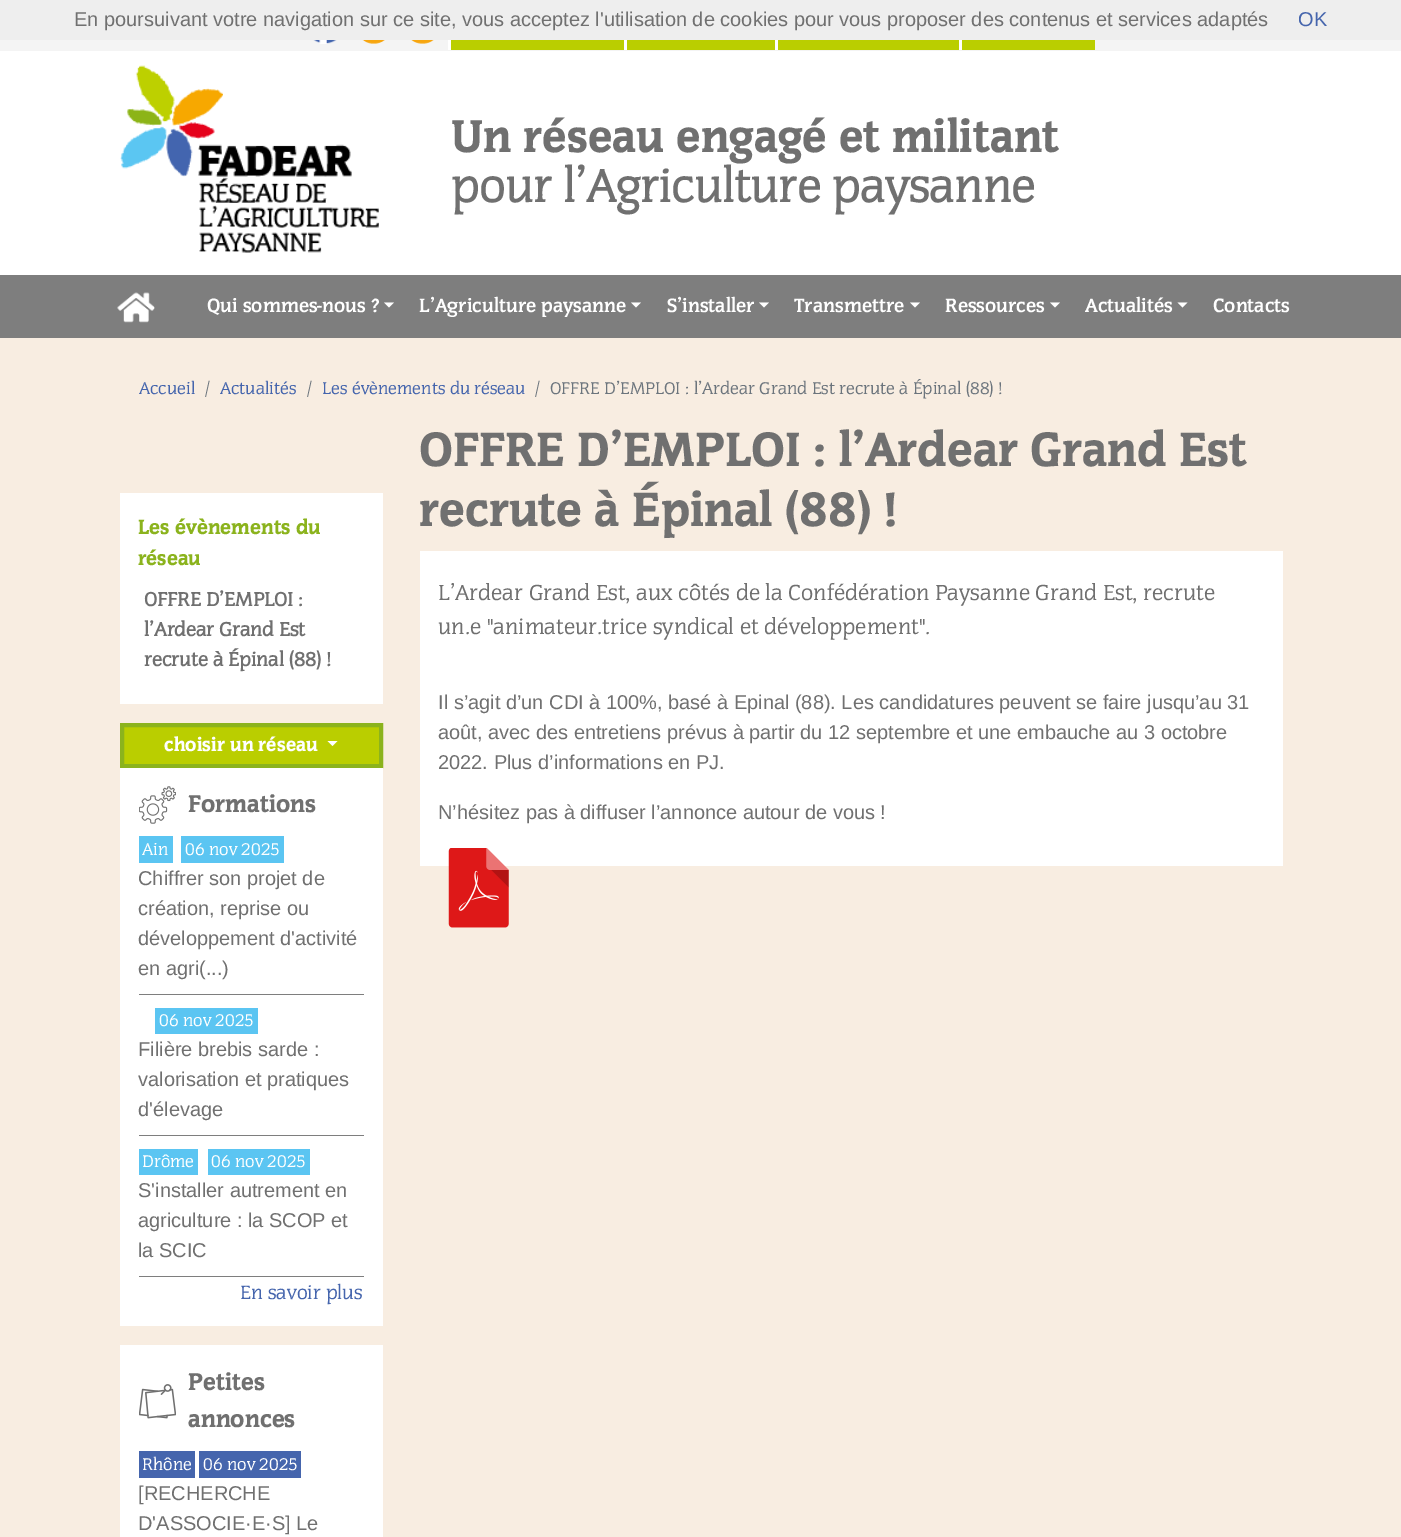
%!PS
<< /PageSize [1401 1537] >> setpagedevice
/rgb { dup -16 bitshift 255 div exch dup -8 bitshift 255 and 255 div exch 255 and 255 div setrgbcolor } def
/font { [ exch dup neg 0 0 3 -1 roll 0 0 ] selectfont } def
/text { moveto show } def
/picture { 5 dict begin { /h /w /y /x /name } { exch def } forall
  gsave x y translate w h scale
  w h 8 [w 0 0 h 0 0] name (r) file false 3 colorimage grestore end } def
0 1537 translate 1 -1 scale
4 setmiterlimit
/s1 { /LiberationSans-Regular 20 font 16#707070 rgb } def
/s2 { /LiberationSans-Regular 20 font 16#4565AD rgb } def
/s3 { /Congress-Black 47.5 font 16#707070 rgb } def
/s4 { /Congress-Bold 47.5 font 16#707070 rgb } def
/s5 { /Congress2-Bold 20 font 16#FFFFFF rgb } def
/s6 { /Congress-Regular 17.5 font 16#4565AD rgb } def
/s7 { /Congress-Regular 17.5 font 16#6C757D rgb } def
/s8 { /Congress-Black 21.25 font 16#8BB31D rgb } def
/s9 { /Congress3-Bold 20 font 16#707070 rgb } def
/s10 { /Congress-Black 20 font 16#FFFFFF rgb } def
/s11 { /Congress-Black 25 font 16#707070 rgb } def
/s12 { /Congress-Regular 17.5 font 16#FFFFFF rgb } def
/s13 { /Congress-Regular 20 font 16#4565AD rgb } def
/s14 { /Congress-Black 50 font 16#707070 rgb } def
/s15 { /Congress-Regular 22.5 font 16#707070 rgb } def
16#F8EDE1 rgb
0 0 1401 1537 rectfill
16#EEEEEE rgb
0 0 1401 40 rectfill
s1
(En poursuivant votre navigation sur ce site, vous acceptez l'utilisation de cookies pour vous proposer des contenus et services adaptés) 74 26 text
s2
(OK) 1298 26 text
16#FFFFFF rgb
0 51 1401 224 rectfill
16#F4F4F4 rgb
0 40 1401 11 rectfill
(pic1.raw) 313 40 24 4 picture
(pic2.raw) 362 40 23 4 picture
(pic3.raw) 411 40 23 4 picture
16#BACE00 rgb
451 40 173 10 rectfill
16#FFFFFF rgb
448 40 3 10 rectfill
16#BACE00 rgb
627 40 148 10 rectfill
16#FFFFFF rgb
624 40 3 10 rectfill
16#BACE00 rgb
778 40 181 10 rectfill
16#FFFFFF rgb
775 40 3 10 rectfill
16#BACE00 rgb
962 40 133 10 rectfill
16#FFFFFF rgb
959 40 3 10 rectfill
(pic4.raw) 120 65 259 188 picture
s3
(Un réseau engagé et militant) 451 152 text
s4
(pour l’Agriculture paysanne) 451 202 text
16#7E7E7E rgb
0 275 1401 63 rectfill
(pic5.raw) 117 292 38 31 picture
s5
(Qui sommes-nous ?) 207 312 text
384 302.5 moveto 394 302.5 lineto 389 307.5 lineto closepath fill
(L’Agriculture paysanne) 419 312 text
631 302.5 moveto 641 302.5 lineto 636 307.5 lineto closepath fill
(S’installer) 667 312 text
759 302.5 moveto 769 302.5 lineto 764 307.5 lineto closepath fill
(Transmettre) 794 312 text
910 302.5 moveto 920 302.5 lineto 915 307.5 lineto closepath fill
(Ressources) 945 312 text
1050 302.5 moveto 1060 302.5 lineto 1055 307.5 lineto closepath fill
(Actualités) 1085 312 text
1177.5 302.5 moveto 1187.5 302.5 lineto 1182.5 307.5 lineto closepath fill
(Contacts) 1213 312 text
s6
(Accueil) 139 394 text
s7
(/) 205 394 text
s6
(Actualités) 220 394 text
s7
(/) 307 394 text
s6
(Les évènements du réseau) 322 394 text
s7
(/) 535 394 text
(OFFRE D’EMPLOI : l’Ardear Grand Est recrute à Épinal \(88\) !) 550 394 text
16#FFFFFF rgb
120 493 263 211 rectfill
s8
(Les évènements du) 138 534 text
(réseau) 138 565 text
s9
(OFFRE D’EMPLOI :) 144 606 text
(l’Ardear Grand Est) 144 636 text
(recrute à Épinal \(88\) !) 144 666 text
16#BACE00 rgb
122 725 moveto 381 725 lineto 381 766 lineto 122 766 lineto closepath gsave fill grestore
16#8BB31D rgb
4 setlinewidth
stroke
s10
(choisir un réseau) 164 751 text
327.5 741 moveto 337.5 741 lineto 332.5 746 lineto closepath fill
120 768 263 558 rectfill
(pic6.raw) 139 786 37 38 picture
s11
(Formations) 188 812 text
16#7E7E7E rgb
139 994 225 1 rectfill
16#5BC5F2 rgb
139 836 34 27 rectfill
s12
(Ain) 142 855 text
16#5BC5F2 rgb
181 836 103 27 rectfill
s12
(06 nov 2025) 185 855 text
s1
(Chiffrer son projet de) 138 885 text
(création, reprise ou) 138 915 text
(développement d'activité) 138 945 text
(en agri\(...\)) 138 975 text
16#7E7E7E rgb
139 1135 225 1 rectfill
16#5BC5F2 rgb
155 1008 103 26 rectfill
s12
(06 nov 2025) 159 1026 text
s1
(Filière brebis sarde :) 138 1056 text
(valorisation et pratiques) 138 1086 text
(d'élevage) 138 1116 text
16#7E7E7E rgb
139 1276 225 1 rectfill
16#5BC5F2 rgb
139 1149 59 26 rectfill
s12
(Drôme) 142 1167 text
16#5BC5F2 rgb
208 1149 102 26 rectfill
s12
(06 nov 2025) 211 1167 text
s1
(S'installer autrement en) 138 1197 text
(agriculture : la SCOP et) 138 1227 text
(la SCIC) 138 1257 text
s13
(En savoir plus) 240 1299 text
16#FFFFFF rgb
120 1345 263 192 rectfill
(pic7.raw) 139 1384 37 35 picture
s11
(Petites) 188 1390 text
(annonces) 188 1427 text
16#4565AD rgb
139 1451 56 27 rectfill
s12
(Rhône) 142 1470 text
16#4565AD rgb
199 1451 102 27 rectfill
s12
(06 nov 2025) 203 1470 text
s1
([RECHERCHE) 138 1500 text
(D'ASSOCIE·E·S] Le) 138 1530 text
s14
(OFFRE D’EMPLOI : l’Ardear Grand Est) 419 466 text
(recrute à Épinal \(88\) !) 419 526 text
16#FFFFFF rgb
420 551 863 315 rectfill
s15
(L’Ardear Grand Est, aux côtés de la Confédération Paysanne Grand Est, recrute) 438 600 text
(un.e "animateur.trice syndical et développement".) 438 634 text
s1
(Il s’agit d’un CDI à 100%, basé à Epinal \(88\). Les candidatures peuvent se faire jusqu’au 31) 438 709 text
(août, avec des entretiens prévus à partir du 12 septembre et une embauche au 3 octobre) 438 739 text
(2022. Plus d’informations en PJ.) 438 769 text
(N’hésitez pas à diffuser l’annonce autour de vous !) 438 819 text
(pic8.raw) 448 848 61 80 picture
showpage
